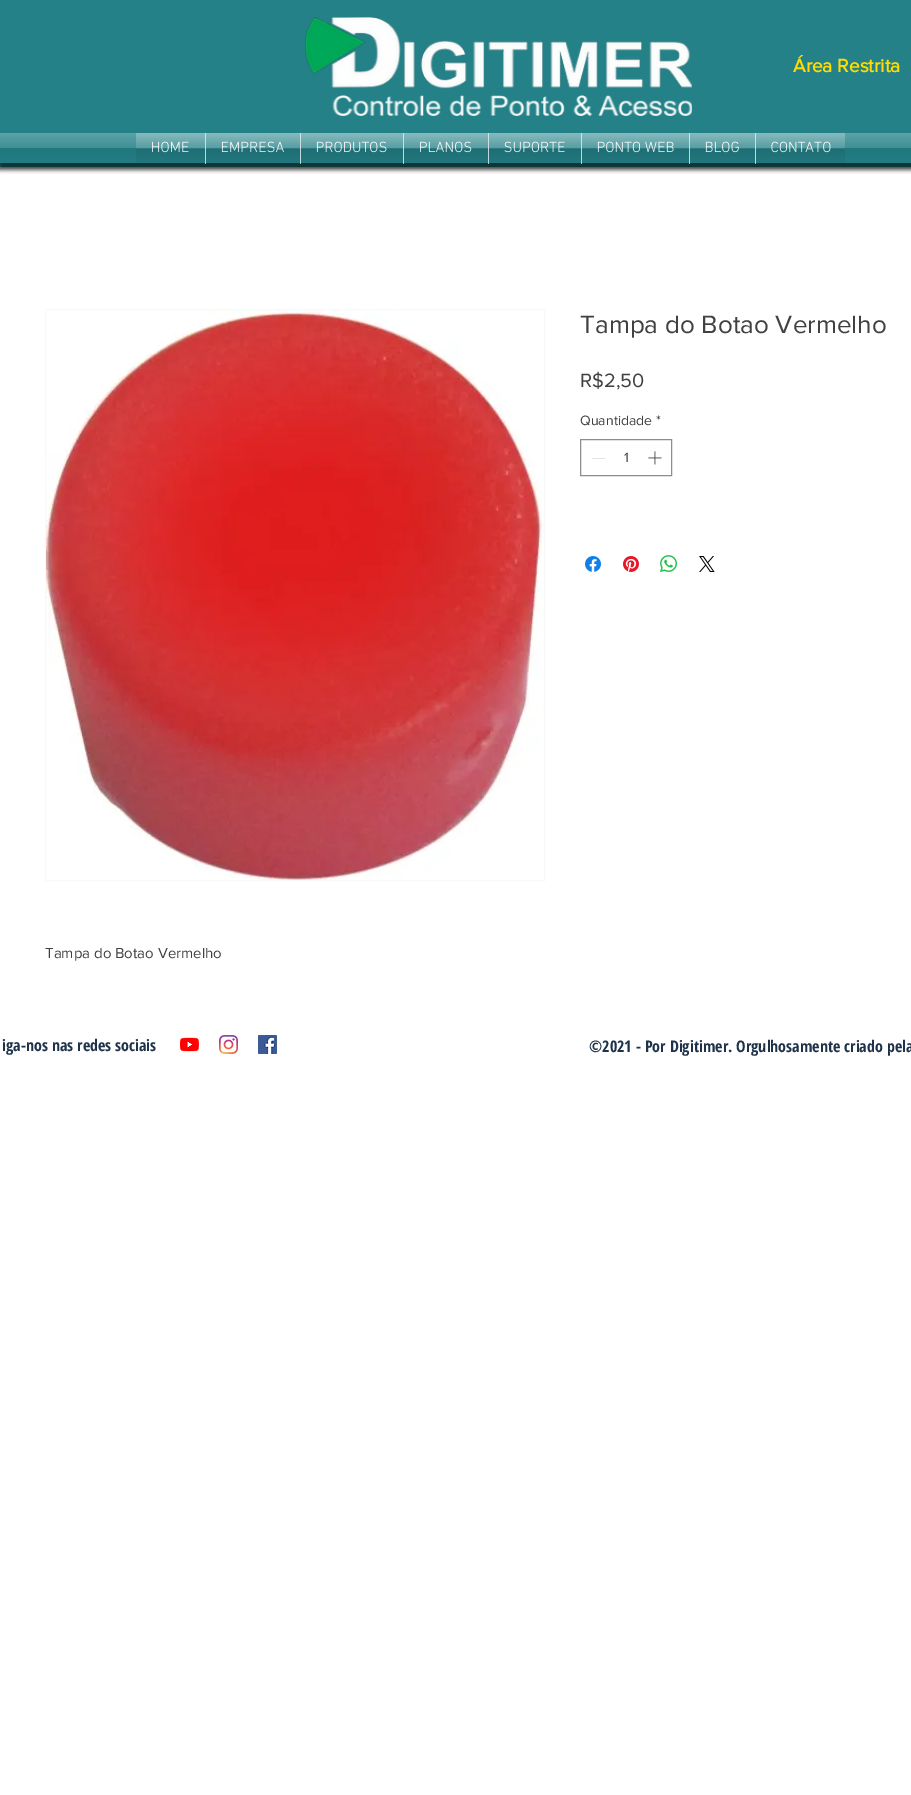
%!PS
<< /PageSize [911 1795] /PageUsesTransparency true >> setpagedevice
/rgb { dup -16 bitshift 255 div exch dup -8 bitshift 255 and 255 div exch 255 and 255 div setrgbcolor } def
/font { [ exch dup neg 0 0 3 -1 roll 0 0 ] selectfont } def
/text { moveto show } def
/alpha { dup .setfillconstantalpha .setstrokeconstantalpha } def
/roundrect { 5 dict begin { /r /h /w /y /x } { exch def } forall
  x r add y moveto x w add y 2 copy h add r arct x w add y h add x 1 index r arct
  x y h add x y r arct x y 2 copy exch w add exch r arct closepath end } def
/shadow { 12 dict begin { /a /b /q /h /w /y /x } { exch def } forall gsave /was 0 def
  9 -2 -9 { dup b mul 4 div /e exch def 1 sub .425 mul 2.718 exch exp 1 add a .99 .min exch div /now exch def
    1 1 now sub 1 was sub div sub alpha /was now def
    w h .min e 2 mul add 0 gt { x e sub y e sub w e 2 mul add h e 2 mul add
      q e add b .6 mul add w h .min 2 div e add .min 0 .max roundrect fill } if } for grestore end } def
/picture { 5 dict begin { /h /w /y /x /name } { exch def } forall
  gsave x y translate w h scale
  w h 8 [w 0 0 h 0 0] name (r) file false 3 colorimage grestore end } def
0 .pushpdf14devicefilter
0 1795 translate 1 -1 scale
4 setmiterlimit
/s1 { /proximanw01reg-Bold 19 font 16#FFDC00 rgb } def
/s2 { /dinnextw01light-Bold 15 font 16#FFFFFF rgb } def
/s3 { /proximanw01reg-Regular 26 font 16#414141 rgb } def
/s4 { /proximanw01reg-Regular 20 font 16#414141 rgb } def
/s5 { /proximanw01reg-Regular 14 font 16#414141 rgb } def
/s6 { /proximanw01reg-Regular 15 font 16#414141 rgb } def
/s7 { /OpenSansCondensed-Bold 16 font 16#1E324A rgb } def
16#FFFFFF rgb
0 0 911 1795 rectfill
16#000000 rgb
0 0 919 167 0 2.5 0.5 shadow
16#238187 rgb
0 0 911 167 rectfill
(pic1.raw) 305 17 387 99 picture
s1
(Área Restrita) 793 72 text
gsave
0 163 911 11 rectclip
16#000000 rgb
-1 138 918 32 0 2 0.6 shadow
grestore
(pic2.raw) 0 133 911 30 picture
s2
(HOME) 151 152 text
(pic3.raw) 136 133 69 30 picture
0.71 alpha
205 133 1 31 rectfill
1 alpha
(EMPRESA) 221 152 text
(pic4.raw) 206 133 94 30 picture
0.71 alpha
300 133 1 31 rectfill
1 alpha
(PRODUTOS) 316 152 text
(pic5.raw) 301 133 102 30 picture
0.71 alpha
403 133 1 31 rectfill
1 alpha
(PLANOS) 419 152 text
(pic6.raw) 404 133 84 30 picture
0.71 alpha
488 133 1 31 rectfill
1 alpha
(SUPORTE) 504 152 text
(pic7.raw) 489 133 92 30 picture
0.71 alpha
581 133 1 31 rectfill
1 alpha
(PONTO WEB) 597 152 text
(pic8.raw) 582 133 107 30 picture
0.71 alpha
689 133 1 31 rectfill
1 alpha
(BLOG) 705 152 text
(pic9.raw) 690 133 65 30 picture
0.71 alpha
755 133 1 31 rectfill
1 alpha
(CONTATO) 771 152 text
(pic10.raw) 756 133 89 30 picture
s3
(Tampa do Botao Vermelho) 580 333 text
s4
(R$2,50) 580 387 text
s5
(Quantidade) 580 425 text
(*) 656 425 text
16#8D8D8D rgb
580.5 439.5 91 36 rectstroke
16#E3E3E3 rgb
592 458 13 1 rectfill
s5
(1) 624 462 text
(pic11.raw) 648 451 14 14 picture
(pic12.raw) 585 556 16 16 picture
(pic13.raw) 623 556 16 16 picture
(pic14.raw) 660 555 17 17 picture
(pic15.raw) 699 556 16 16 picture
16#F8F8F8 rgb
45.5 309.5 499 571 rectstroke
(pic16.raw) 46 310 498 570 picture
s6
(Tampa do Botao Vermelho) 45 958 text
s7
(iga-nos nas redes sociais) 2 1051 text
(pic17.raw) 180 1037 19 15 picture
(pic18.raw) 219 1035 19 19 picture
(pic19.raw) 258 1035 19 19 picture
(©2021 - Por Digitimer. Orgulhosamente criado pela) 589 1052 text
.poppdf14devicefilter showpage
